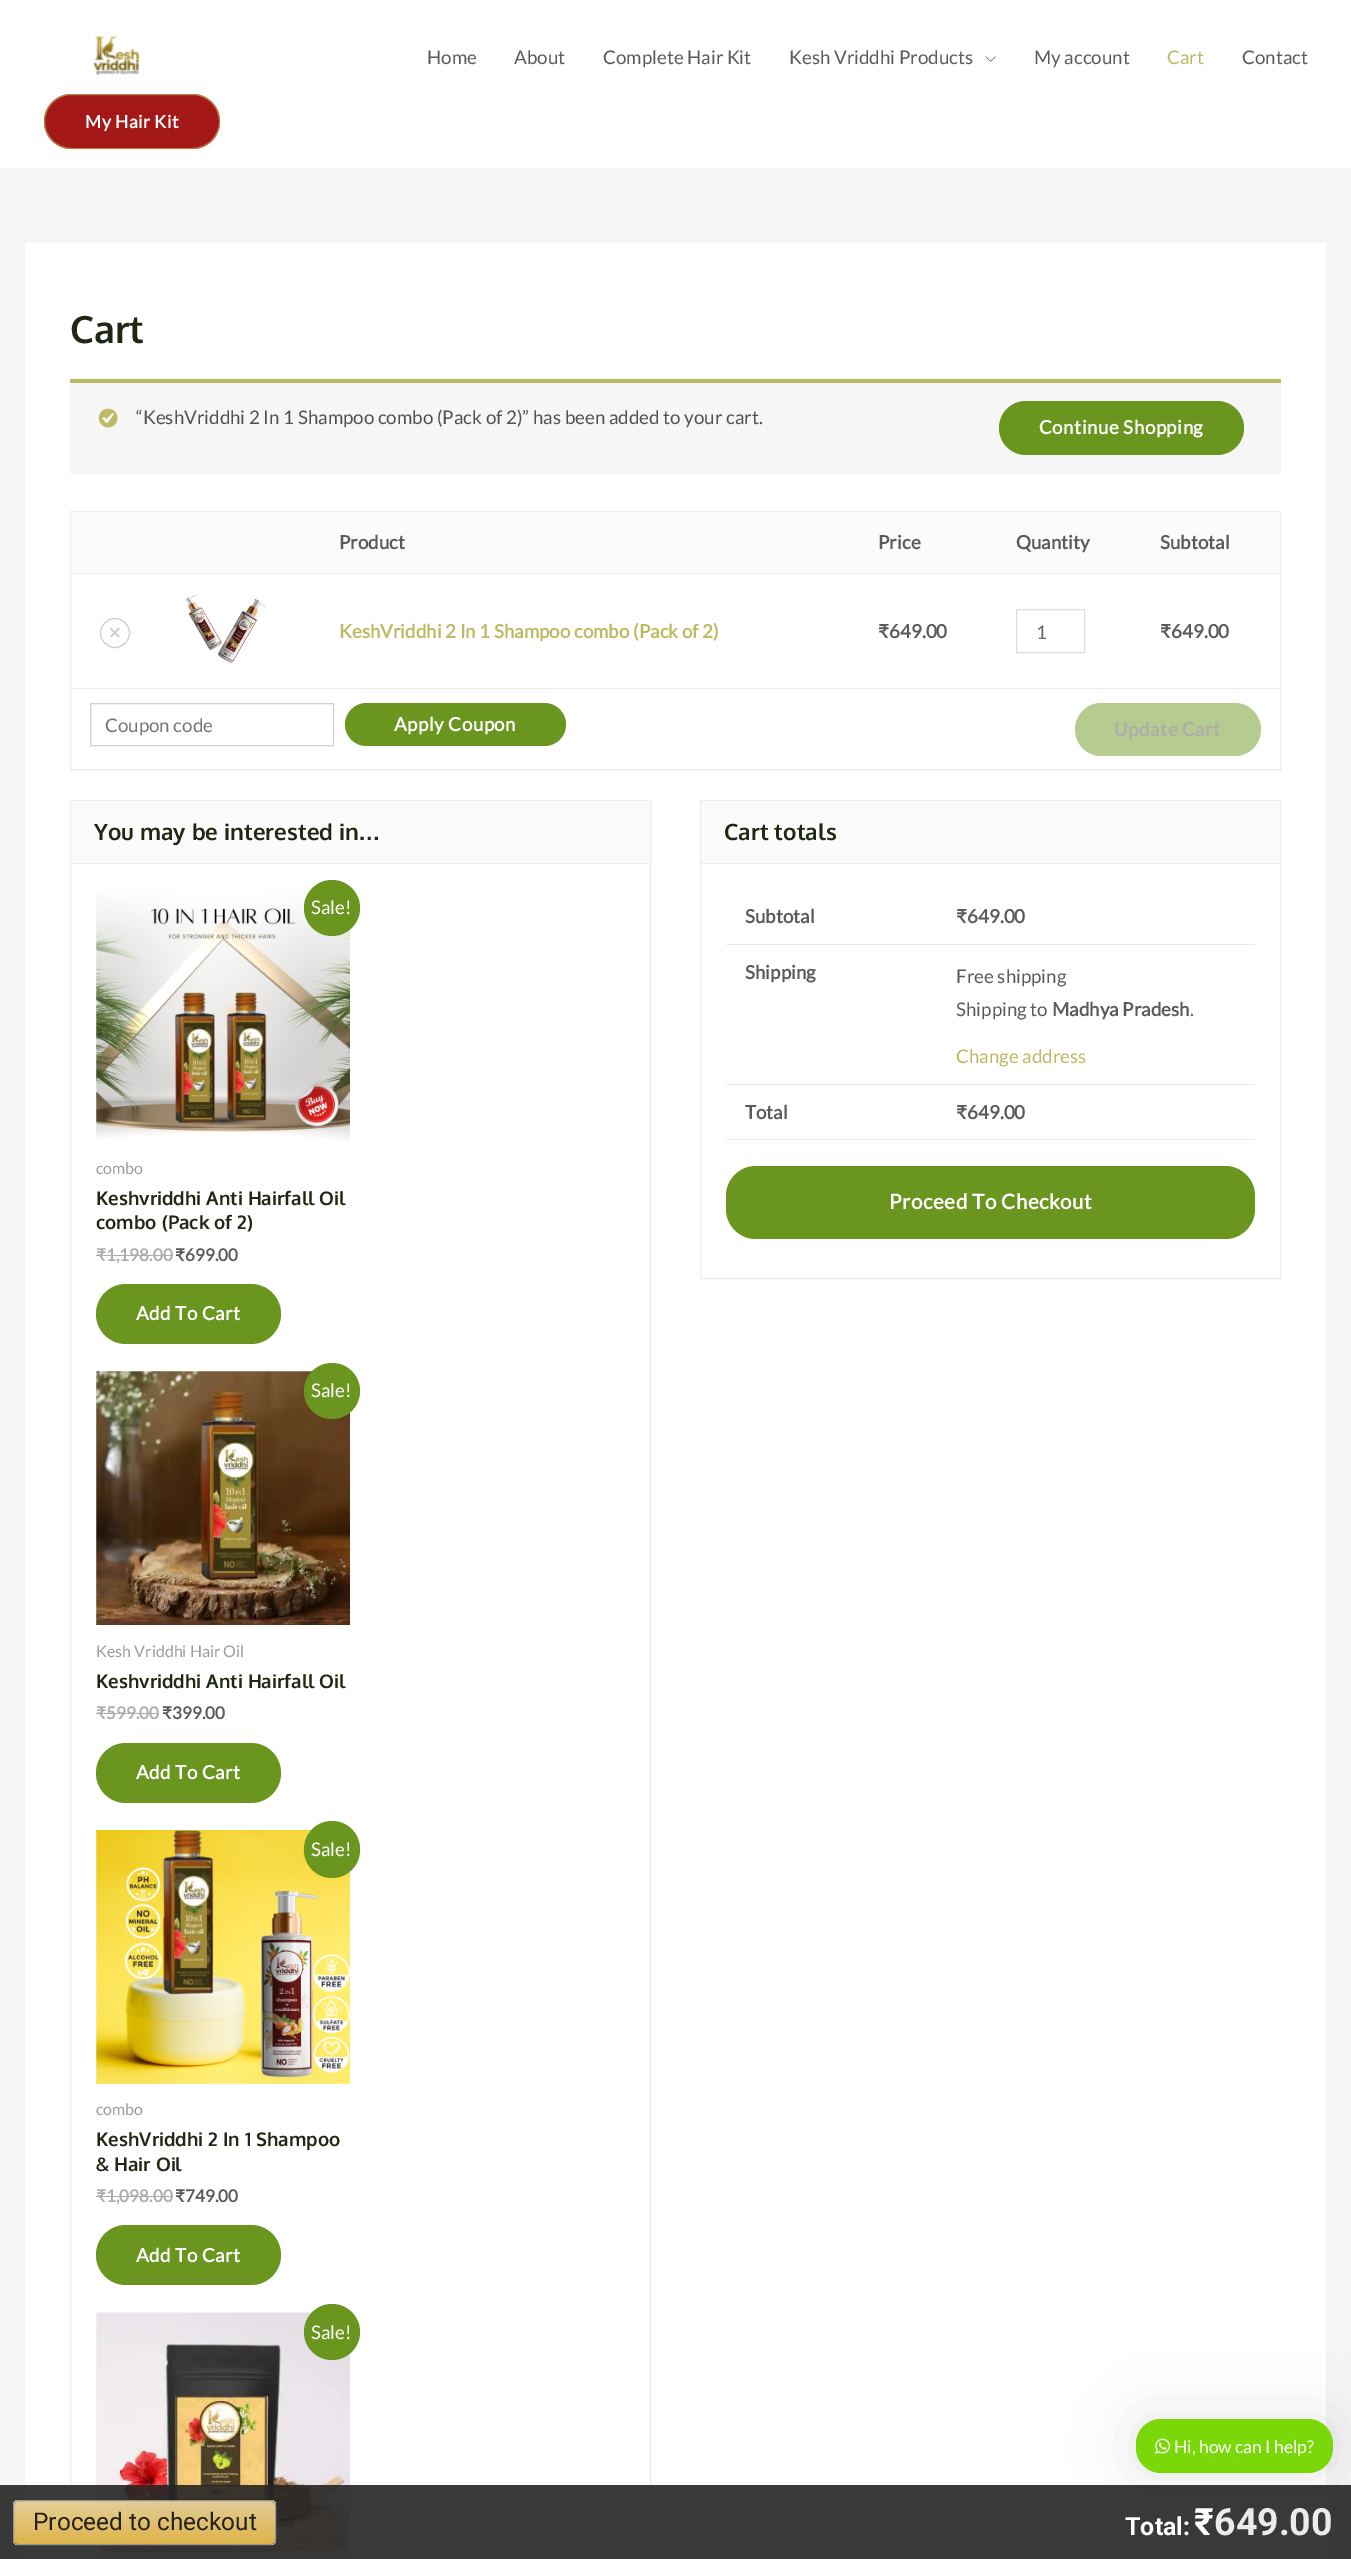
%!PS
<< /PageSize [1351 2559] /PageUsesTransparency true >> setpagedevice
/rgb { dup -16 bitshift 255 div exch dup -8 bitshift 255 and 255 div exch 255 and 255 div setrgbcolor } def
/font { [ exch dup neg 0 0 3 -1 roll 0 0 ] selectfont } def
/text { moveto show } def
/alpha { dup .setfillconstantalpha .setstrokeconstantalpha } def
/circle { newpath 0 360 arc closepath } def
/roundrect { 5 dict begin { /r /h /w /y /x } { exch def } forall
  x r add y moveto x w add y 2 copy h add r arct x w add y h add x 1 index r arct
  x y h add x y r arct x y 2 copy exch w add exch r arct closepath end } def
/shadow { 12 dict begin { /a /b /q /h /w /y /x } { exch def } forall gsave /was 0 def
  9 -2 -9 { dup b mul 4 div /e exch def 1 sub .425 mul 2.718 exch exp 1 add a .99 .min exch div /now exch def
    1 1 now sub 1 was sub div sub alpha /was now def
    w h .min e 2 mul add 0 gt { x e sub y e sub w e 2 mul add h e 2 mul add
      q e add b .6 mul add w h .min 2 div e add .min 0 .max roundrect fill } if } for grestore end } def
/picture { 5 dict begin { /h /w /y /x /name } { exch def } forall
  gsave x y translate w h scale
  w h 8 [w 0 0 h 0 0] name (r) file false 3 colorimage grestore end } def
0 .pushpdf14devicefilter
0 2559 translate 1 -1 scale
4 setmiterlimit
/s1 { /Lato-Regular 18.75 font 16#5A5A5A rgb } def
/s2 { /Lato-Regular 18.75 font 16#BCBA63 rgb } def
/s3 { /Oxygen-Bold 37.5 font 16#202714 rgb } def
/s4 { /Lato-Regular 18.75 font 16#515151 rgb } def
/s5 { /Lato-Bold 18.75 font 16#5A5A5A rgb } def
/s6 { /Roboto-Regular 22.5 font 16#CCCCCC rgb } def
/s7 { /Lato-Bold 18.75 font 16#BCBA63 rgb } def
/s8 { /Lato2-Bold 18.75 font 16#5A5A5A rgb } def
/s9 { /Lato-Regular 18.75 font 16#666666 rgb } def
/s10 { /Lato-Regular 18.75 font 16#757575 rgb } def
/s11 { /Oxygen-Bold 22.5 font 16#202714 rgb } def
/s12 { /LiberationSans-Bold 22.5 font 16#202714 rgb } def
/s13 { /Lato-Regular 18.75 font 16#FFFFFF rgb } def
/s14 { /Lato-Regular 16 font 16#9C9C9C rgb } def
/s15 { /Oxygen-Bold 18.75 font 16#202714 rgb } def
/s16 { /Lato2-Bold 17 font 16#ADADAD rgb } def
/s17 { /Lato-Bold 17 font 16#ADADAD rgb } def
/s18 { /Lato2-Bold 17 font 16#5A5A5A rgb } def
/s19 { /Lato-Bold 17 font 16#5A5A5A rgb } def
/s20 { /Lato-Regular 17.5 font 16#FFFFFF rgb } def
/s21 { /Roboto-Regular 24.4 font 16#26221B rgb } def
/s22 { /Roboto-Bold 25 font 16#FFFFFF rgb } def
/s23 { /Roboto-Bold 37.5 font 16#FFFFFF rgb } def
/s24 { /Roboto-Bold 37.5 font 16#EBEBEB rgb } def
16#F5F5F5 rgb
0 0 1351 2559 rectfill
16#FFFFFF rgb
0 0 1351 168 rectfill
(pic1.raw) 93 36 47 40 picture
s1
(Home) 427 64 text
(About) 514 64 text
(Complete Hair Kit) 603 64 text
(Kesh Vriddhi Products) 789 64 text
(pic2.raw) 985 56 11 6 picture
(My account) 1034 64 text
s2
(Cart) 1167 64 text
s1
(Contact) 1242 64 text
16#A51818 rgb
44 94 176 55 27.5 roundrect fill
0.64 alpha
16#BCBA63 rgb
44.5 94.5 175 54 27 roundrect stroke
/Lato-Bold 17.5 font
1 alpha
16#FFFFFF rgb
85 128 moveto 0.5 0 (My Hair Kit) ashow
25 243 1301 2316 rectfill
s3
(Cart) 70 343 text
16#F7F6F7 rgb
70 383 1211 91 rectfill
16#BCBA63 rgb
70 379 1211 4 rectfill
(pic3.raw) 98 408 20 20 picture
s4
(“KeshVriddhi 2 In 1 Shampoo combo \(Pack of 2\)” has been added to your cart.) 136 424 text
16#6A961F rgb
999 401 245 54 27 roundrect fill
/Lato-Bold 18.75 font
16#FFFFFF rgb
1039 434 moveto 0.5 0 (Continue Shopping) ashow
16#EBEBEB rgb
70.5 511.5 1210 258 rectstroke
16#FBFBFB rgb
71 513 1209 60 rectfill
s5
(Product) 339 549 text
(Price) 878 549 text
(Quantity) 1016 549 text
(Subtotal) 1160 549 text
16#EBEBEB rgb
71 573 1209 1 rectfill
16#CCCCCC rgb
115 633 14.5 circle stroke
s6
(×) 109 640 text
(pic4.raw) 185 595 80 69 picture
s7
(KeshVriddhi 2 In 1 Shampoo combo \(Pack of 2\)) 339 638 text
s8
(₹) 878 638 text
s5
(649.00) 889 638 text
16#DDDDDD rgb
1016.5 609.5 68 43 rectstroke
s9
(1) 1036 639 text
s8
(₹) 1160 638 text
s5
(649.00) 1171 638 text
16#EBEBEB rgb
71 688 1209 1 rectfill
16#D3CED2 rgb
90.5 703.5 243 42 rectstroke
s10
(Coupon code) 105 732 text
16#6A961F rgb
345 703 221 43 21.5 roundrect fill
/Lato-Bold 18.75 font
16#FFFFFF rgb
394 731 moveto 0.5 0 (Apply Coupon) ashow
16#B5CB8F rgb
1075 703 186 53 26.5 roundrect fill
16#ADADAD rgb
1114 736 moveto 0.5 0 (Update Cart) ashow
16#EBEBEB rgb
70.5 800.5 580 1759 rectstroke
16#FBFBFB rgb
71 801 579 62 rectfill
16#EBEBEB rgb
71 863 579 1 rectfill
s11
(You may be interested in) 94 840 text
s12
(…) 358 840 text
(pic5.raw) 96 889 254 253 picture
16#6A961F rgb
332 908 28 circle fill
s13
(Sale!) 311 914 text
s14
(combo) 96 1174 text
s15
(Keshvriddhi Anti Hairfall Oil) 96 1205 text
(combo \(Pack of 2\)) 96 1229 text
s16
(₹) 96 1261 text
96 1255 10 1 rectfill
s17
(1,198.00) 106 1261 text
106 1255 67 1 rectfill
s18
(₹) 175 1261 text
s19
(699.00) 185 1261 text
16#6A961F rgb
96 1284 185 60 30 roundrect fill
/Lato-Bold 18.75 font
16#FFFFFF rgb
136 1320 moveto 0.5 0 (Add To Cart) ashow
(pic6.raw) 96 1371 254 254 picture
16#6A961F rgb
332 1391 28 circle fill
s13
(Sale!) 311 1397 text
s14
(Kesh Vriddhi Hair Oil) 96 1657 text
s15
(Keshvriddhi Anti Hairfall Oil) 96 1688 text
s16
(₹) 96 1719 text
s17
(599.00) 106 1719 text
96 1713 10 1 rectfill
106 1713 53 1 rectfill
s18
(₹) 162 1719 text
s19
(399.00) 172 1719 text
16#6A961F rgb
96 1743 185 60 30 roundrect fill
/Lato-Bold 18.75 font
16#FFFFFF rgb
136 1779 moveto 0.5 0 (Add To Cart) ashow
(pic7.raw) 96 1830 254 254 picture
16#6A961F rgb
304 1821 56 57 28 roundrect fill
s13
(Sale!) 311 1856 text
s14
(combo) 96 2115 text
s15
(KeshVriddhi 2 In 1 Shampoo) 96 2146 text
(& Hair Oil) 96 2171 text
s16
(₹) 96 2202 text
96 2196 10 1 rectfill
s17
(1,098.00) 106 2202 text
106 2196 67 1 rectfill
s18
(₹) 175 2202 text
s19
(749.00) 185 2202 text
16#6A961F rgb
96 2225 185 60 30 roundrect fill
/Lato-Bold 18.75 font
16#FFFFFF rgb
136 2262 moveto 0.5 0 (Add To Cart) ashow
(pic8.raw) 96 2312 254 247 picture
16#6A961F rgb
332 2332 28 circle fill
s13
(Sale!) 311 2339 text
16#EBEBEB rgb
700.5 800.5 580 478 rectstroke
16#FBFBFB rgb
701 801 579 62 rectfill
16#EBEBEB rgb
701 863 579 1 rectfill
s11
(Cart totals) 724 840 text
16#EBEBEB rgb
726 1139 529 1 rectfill
s5
(Subtotal) 745 923 text
s8
(₹) 956 923 text
s5
(649.00) 967 923 text
16#EBE9EB rgb
726 944 529 1 rectfill
s5
(Shipping) 745 979 text
s1
(Free shipping) 956 983 text
(Shipping to) 956 1016 text
s5
(Madhya Pradesh) 1052 1016 text
s1
(.) 1190 1016 text
s2
(Change address) 956 1063 text
16#EBE9EB rgb
726 1084 529 1 rectfill
s5
(Total) 745 1119 text
s8
(₹) 956 1119 text
s5
(649.00) 967 1119 text
16#6A961F rgb
726 1166 529 73 30 roundrect fill
/Lato-Bold 20.6 font
16#FFFFFF rgb
889 1209 moveto 0.5 0 (Proceed To Checkout) ashow
0.9 alpha
16#242424 rgb
0 2485 1351 74 rectfill
1 alpha
16#000000 rgb
1136 2419 197 54 25 31 0.1 shadow
16#7BD808 rgb
1136 2419 197 54 25 roundrect fill
(pic9.raw) 1155 2438 15 16 picture
s20
(Hi, how can I help?) 1174 2453 text
gsave
13 2500 263 45 6 roundrect clip newpath
0.9 alpha
gsave 13 2500 moveto 276 2500 lineto 276 2501 lineto 13 2501 lineto closepath clip newpath
<< /ShadingType 2 /ColorSpace /DeviceRGB /Coords [144 2459 144 2501] /Extend [true true] /Function << /FunctionType 2 /Domain [0 1] /C0 [0.969 0.875 0.647] /C1 [0.941 0.757 0.294] /N 1 >> >> shfill grestore
gsave 13 2501 moveto 276 2501 lineto 276 2544 lineto 13 2544 lineto closepath clip newpath
<< /ShadingType 2 /ColorSpace /DeviceRGB /Coords [144 2501 144 2544] /Extend [true true] /Function << /FunctionType 2 /Domain [0 1] /C0 [0.969 0.875 0.647] /C1 [0.941 0.757 0.294] /N 1 >> >> shfill grestore
gsave 13 2544 moveto 276 2544 lineto 276 2545 lineto 13 2545 lineto closepath clip newpath
<< /ShadingType 2 /ColorSpace /DeviceRGB /Coords [144 2544 144 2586] /Extend [true true] /Function << /FunctionType 2 /Domain [0 1] /C0 [0.969 0.875 0.647] /C1 [0.941 0.757 0.294] /N 1 >> >> shfill grestore
grestore
0.9 alpha
16#8D9096 rgb
13.5 2500.5 262 44 5.5 roundrect stroke
1 alpha
s21
(Proceed to checkout) 33 2530 text
s22
(Total:) 1125 2535 text
s23
(₹) 1194 2535 text
s24
(649.00) 1214 2535 text
.poppdf14devicefilter showpage
